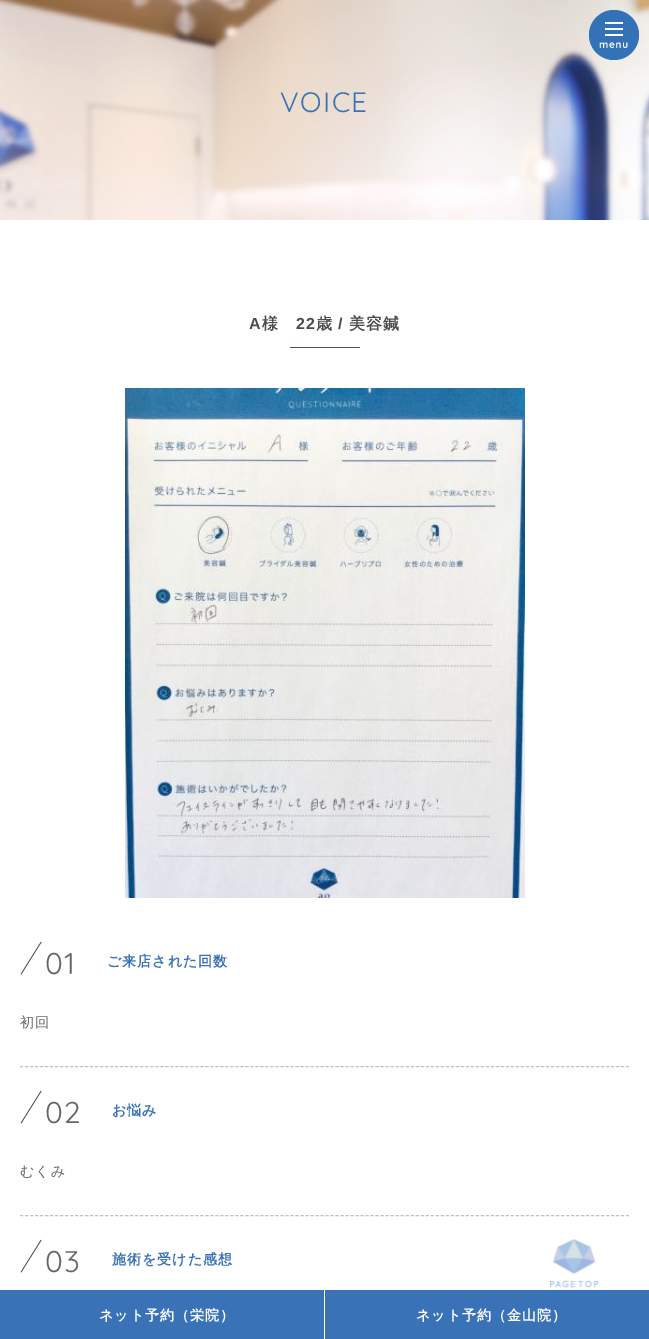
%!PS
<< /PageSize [649 1339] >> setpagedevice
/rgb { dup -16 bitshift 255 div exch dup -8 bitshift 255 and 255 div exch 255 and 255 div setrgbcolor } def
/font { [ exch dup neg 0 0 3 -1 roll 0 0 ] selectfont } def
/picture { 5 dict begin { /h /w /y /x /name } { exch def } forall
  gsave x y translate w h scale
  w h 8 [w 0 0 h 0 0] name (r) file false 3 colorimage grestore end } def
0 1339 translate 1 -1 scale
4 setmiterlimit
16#FFFFFF rgb
0 0 649 1339 rectfill
(pic2.raw) 0 0 649 220 picture
(pic1.raw) 589 10 50 50 picture
/Quicksand-Regular 28 font
16#3972B7 rgb
280 112 moveto 1.5 0 (VOICE) ashow
/LiberationSans-Bold 16 font
16#4D4D4D rgb
249 329 moveto 1 0 (A) ashow
/WenQuanYiZenHei-Bold 16 font
262 329 moveto 1 0 (様) ashow
/LiberationSans-Bold 16 font
296 329 moveto 1 0 (22) ashow
/WenQuanYiZenHei-Bold 16 font
316 329 moveto 1 0 (歳) ashow
/LiberationSans-Bold 16 font
338 329 moveto 1 0 (/) ashow
/WenQuanYiZenHei-Bold 16 font
349 329 moveto 1 0 (美容鍼) ashow
16#4E5071 rgb
290 347 70 1 rectfill
(pic3.raw) 125 388 400 510 picture
(pic4.raw) 20 941 22 34 picture
/Quicksand-Regular 30 font
16#666666 rgb
45 974 moveto 1.5 0 (01) ashow
/WenQuanYiZenHei-Bold 14 font
16#3972B7 rgb
107 966 moveto 1 0 (ご来店された回数) ashow
16#C1C1C1 rgb
[3 2.01] 0 setdash
20 1066.5 moveto 629 1066.5 lineto stroke
/WenQuanYiZenHei-Medium 14 font
16#666666 rgb
20 1027 moveto 1 0 (初回) ashow
(pic4.raw) 20 1090 22 34 picture
/Quicksand-Regular 30 font
45 1123 moveto 1.5 0 (02) ashow
/WenQuanYiZenHei-Bold 14 font
16#3972B7 rgb
112 1115 moveto 1 0 (お悩み) ashow
16#C1C1C1 rgb
20 1215.5 moveto 629 1215.5 lineto stroke
/WenQuanYiZenHei-Medium 14 font
16#666666 rgb
20 1176 moveto 1 0 (むくみ) ashow
(pic4.raw) 20 1239 22 34 picture
/Quicksand-Regular 30 font
45 1272 moveto 1.5 0 (03) ashow
/WenQuanYiZenHei-Bold 14 font
16#3972B7 rgb
112 1264 moveto 1 0 (施術を受けた感想) ashow
(pic5.raw) 550 1239 49 49 picture
0 1290 649 49 rectfill
16#FFFFFF rgb
324 1290 1 49 rectfill
99 1320 moveto 1 0 (ネット予約（栄院）) ashow
416 1320 moveto 1 0 (ネット予約（金山院）) ashow
showpage
